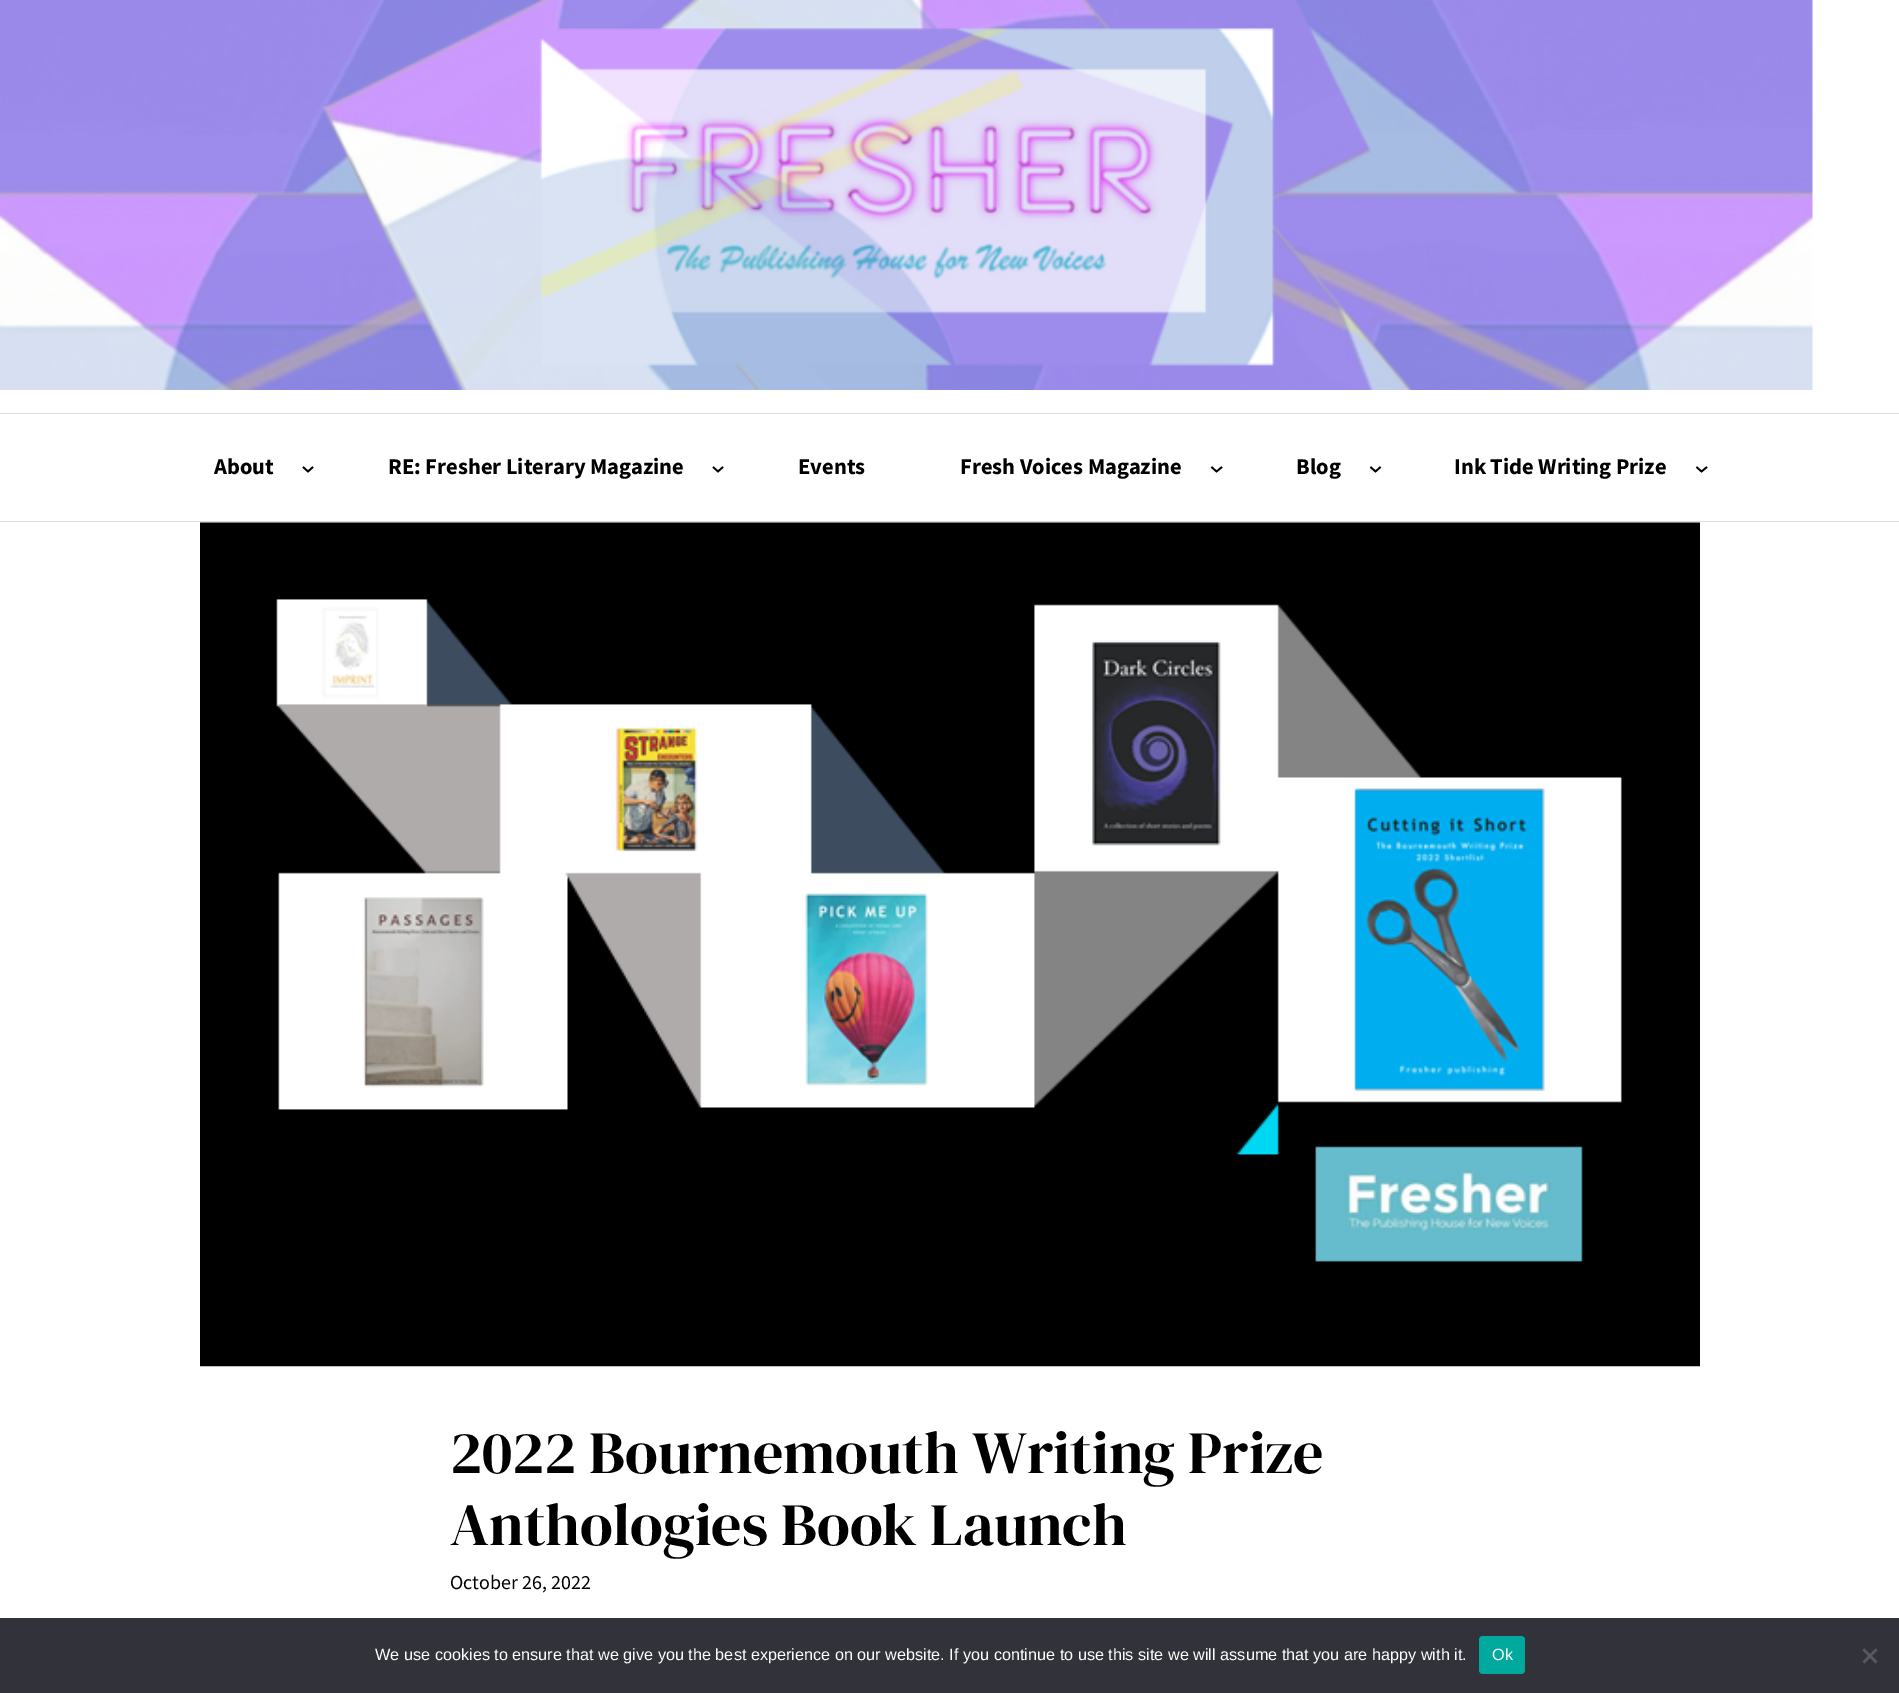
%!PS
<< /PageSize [1899 1693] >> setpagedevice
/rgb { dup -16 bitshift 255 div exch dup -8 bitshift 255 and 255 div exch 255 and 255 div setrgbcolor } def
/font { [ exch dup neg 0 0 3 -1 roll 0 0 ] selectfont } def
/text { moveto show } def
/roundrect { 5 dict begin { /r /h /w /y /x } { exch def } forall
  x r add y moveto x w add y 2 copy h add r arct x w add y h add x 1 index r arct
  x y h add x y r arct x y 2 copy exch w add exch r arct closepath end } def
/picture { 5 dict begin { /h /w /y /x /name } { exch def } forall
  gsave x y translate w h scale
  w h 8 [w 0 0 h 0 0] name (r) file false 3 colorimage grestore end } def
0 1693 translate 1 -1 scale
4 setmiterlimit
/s1 { /SourceSansPro-Bold 22.5 font 16#000000 rgb } def
/s2 { /DMSerifDisplay-Regular 60 font 16#000000 rgb } def
/s3 { /SourceSansPro-Regular 20 font 16#000000 rgb } def
/s4 { /LiberationSans-Regular 16.25 font 16#FFFFFF rgb } def
16#FFFFFF rgb
0 0 1899 1693 rectfill
(pic1.raw) 0 0 1813 390 picture
16#DEDEDE rgb
0 413 1899 1 rectfill
0 521 1899 1 rectfill
s1
(About) 214 474 text
1.7 setlinewidth
303 467 moveto 308 471.5 lineto 313 467 lineto stroke
(RE: Fresher Literary Magazine) 388 474 text
713 467 moveto 718 471.5 lineto 723 467 lineto stroke
(Events) 798 474 text
(Fresh Voices Magazine) 960 474 text
1211.5 467 moveto 1216.5 471.5 lineto 1222 467 lineto stroke
(Blog) 1296 474 text
1370.5 467 moveto 1375.5 471.5 lineto 1380.5 467 lineto stroke
(Ink Tide Writing Prize) 1454 474 text
1696.5 467 moveto 1701.5 471.5 lineto 1707 467 lineto stroke
(pic2.raw) 200 522 1500 845 picture
s2
(2022 Bournemouth Writing Prize) 450 1473 text
(Anthologies Book Launch) 450 1545 text
s3
(October 26, 2022) 450 1589 text
16#32323A rgb
0 1618 1899 75 rectfill
s4
(We use cookies to ensure that we give you the best experience on our website. If you continue to use this site we will assume that you are happy with it.) 375 1660 text
16#00A99D rgb
1479 1636 46 38 4 roundrect fill
s4
(Ok) 1492 1660 text
16#59595D rgb
1875.5 1648.5 moveto 1877.5 1650 lineto 1864.5 1663.5 lineto 1862.5 1661.5 lineto closepath fill
1862.5 1650 moveto 1864.5 1648.5 lineto 1877.5 1661.5 lineto 1875.5 1663.5 lineto closepath fill
showpage
